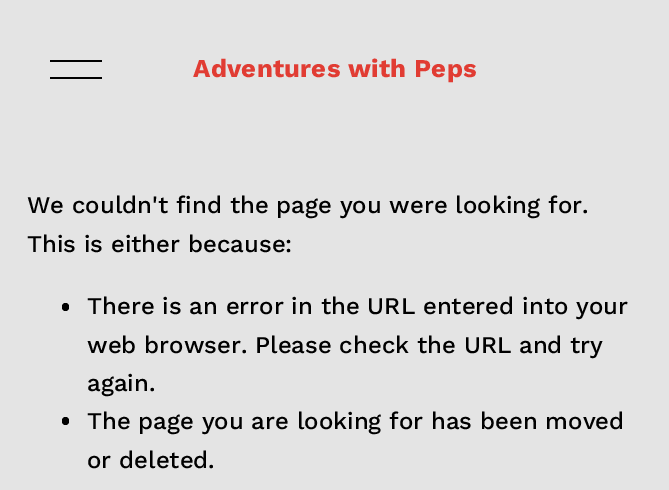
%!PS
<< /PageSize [669 490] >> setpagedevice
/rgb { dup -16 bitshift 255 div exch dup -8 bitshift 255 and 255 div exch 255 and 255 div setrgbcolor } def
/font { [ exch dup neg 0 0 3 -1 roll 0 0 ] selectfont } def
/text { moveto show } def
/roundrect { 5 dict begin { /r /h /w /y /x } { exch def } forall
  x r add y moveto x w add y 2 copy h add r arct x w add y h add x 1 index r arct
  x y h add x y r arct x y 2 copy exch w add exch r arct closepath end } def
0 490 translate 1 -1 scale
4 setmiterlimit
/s1 { /WorkSans-Medium 24 font 16#000000 rgb } def
16#E4E4E4 rgb
0 0 669 490 rectfill
16#000000 rgb
50 60 52 2 rectfill
50 77 52 2 rectfill
/WorkSans-Bold 25.6 font
16#E13C33 rgb
193 77 moveto 0.25 0 (Adventures with Peps) ashow
s1
(We couldn't find the page you were looking for.) 27 213 text
(This is either because:) 27 252 text
62 303 7 8 3.5 roundrect fill
(There is an error in the URL entered into your) 87 314 text
(web browser. Please check the URL and try) 87 353 text
(again.) 87 391 text
62 417 7 8 3.5 roundrect fill
(The page you are looking for has been moved) 87 429 text
(or deleted.) 87 468 text
showpage
